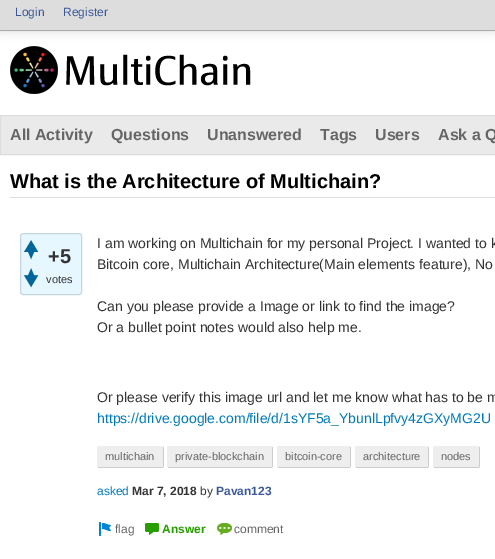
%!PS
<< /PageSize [495 559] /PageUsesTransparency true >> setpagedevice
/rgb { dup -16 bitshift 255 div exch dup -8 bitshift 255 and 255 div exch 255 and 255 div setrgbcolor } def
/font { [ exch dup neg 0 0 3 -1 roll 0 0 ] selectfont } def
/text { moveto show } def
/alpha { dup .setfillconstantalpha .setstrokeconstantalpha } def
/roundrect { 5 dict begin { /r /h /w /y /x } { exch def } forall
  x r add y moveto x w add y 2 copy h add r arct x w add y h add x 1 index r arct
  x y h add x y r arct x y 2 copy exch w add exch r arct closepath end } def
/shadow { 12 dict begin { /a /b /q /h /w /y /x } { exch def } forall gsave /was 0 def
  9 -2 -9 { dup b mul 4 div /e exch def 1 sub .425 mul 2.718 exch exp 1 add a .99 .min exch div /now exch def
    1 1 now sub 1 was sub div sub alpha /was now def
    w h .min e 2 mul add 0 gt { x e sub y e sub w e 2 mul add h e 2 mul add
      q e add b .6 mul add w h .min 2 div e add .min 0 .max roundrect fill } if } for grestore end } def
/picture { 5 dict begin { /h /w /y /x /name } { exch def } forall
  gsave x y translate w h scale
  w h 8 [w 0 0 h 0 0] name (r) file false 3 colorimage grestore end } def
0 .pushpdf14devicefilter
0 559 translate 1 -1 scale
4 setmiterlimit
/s1 { /LiberationSans-Regular 12 font 16#3B5998 rgb } def
/s2 { /LiberationSans-Bold 16 font 16#666666 rgb } def
/s3 { /LiberationSans-Bold 20 font 16#000000 rgb } def
/s4 { /LiberationSans-Bold 20 font 16#333333 rgb } def
/s5 { /LiberationSans-Regular 11 font 16#333333 rgb } def
/s6 { /LiberationSans-Regular 14 font 16#333333 rgb } def
/s7 { /LiberationSans-Regular 14 font 16#0179B5 rgb } def
/s8 { /LiberationSans-Regular 11 font 16#666666 rgb } def
/s9 { /LiberationSans-Regular 12 font 16#0179B5 rgb } def
/s10 { /LiberationSans-Bold 12 font 16#333333 rgb } def
/s11 { /LiberationSans-Regular 12 font 16#333333 rgb } def
/s12 { /LiberationSans-Bold 12 font 16#3B5998 rgb } def
/s13 { /LiberationSans-Regular 12 font 16#666666 rgb } def
/s14 { /LiberationSans-Bold 12 font 16#289E00 rgb } def
16#FFFFFF rgb
0 0 495 559 rectfill
16#000000 rgb
0 0 495 31 0 5 0.15 shadow
16#DDDDDD rgb
0 0 495 30 rectfill
16#AAAAAA rgb
0 30 495 1 rectfill
s1
(Login) 15 16 text
(Register) 63 16 text
(pic1.raw) 10 46 241 48 picture
16#EAEAEA rgb
0.5 115.5 moveto 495.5 115.5 lineto 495.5 154.5 lineto 0.5 154.5 lineto closepath gsave fill grestore
16#DDDDDD rgb
stroke
s2
(All Activity) 10 140 text
(Questions) 111 140 text
(Unanswered) 207 140 text
(Tags) 320 140 text
(Users) 375 140 text
(Ask a Q) 438 140 text
16#DDDDDD rgb
10 197 485 1 rectfill
s3
(What is the Architecture of Multichain?) 10 188 text
16#E7F7FF rgb
20.5 233.5 61 61 2.5 roundrect gsave fill grestore
16#C5D6DF rgb
stroke
(pic2.raw) 24 240 15 20 picture
(pic3.raw) 23 268 16 20 picture
s4
(+5) 48 263 text
s5
(votes) 46 283 text
s6
(I am working on Multichain for my personal Project. I wanted to k) 97 248 text
(Bitcoin core, Multichain Architecture\(Main elements feature\), No) 97 269 text
(Can you please provide a Image or link to find the image?) 97 311 text
(Or a bullet point notes would also help me.) 97 332 text
(Or please verify this image url and let me know what has to be m) 97 402 text
s7
(https://drive.google.com/file/d/1sYF5a_YbunlLpfvy4zGXyMG2U) 97 423 text
16#EEEEEE rgb
97 446 67 22 2 roundrect fill
16#CCCCCC rgb
163 447 1 20 rectfill
98 467 65 1 rectfill
s8
(multichain) 105 460 text
16#EEEEEE rgb
167 446 106 22 2 roundrect fill
16#CCCCCC rgb
272 447 1 20 rectfill
168 467 104 1 rectfill
s8
(private-blockchain) 175 460 text
16#EEEEEE rgb
277 446 74 22 2 roundrect fill
16#CCCCCC rgb
350 447 1 20 rectfill
278 467 72 1 rectfill
s8
(bitcoin-core) 285 460 text
16#EEEEEE rgb
355 446 74 22 2 roundrect fill
16#CCCCCC rgb
428 447 1 20 rectfill
356 467 72 1 rectfill
s8
(architecture) 363 460 text
16#EEEEEE rgb
433 446 47 22 2 roundrect fill
16#CCCCCC rgb
479 447 1 20 rectfill
434 467 45 1 rectfill
s8
(nodes) 441 460 text
s9
(asked) 97 495 text
s10
(Mar 7, 2018) 132 495 text
s11
(by) 200 495 text
s12
(Pavan123) 216 495 text
(pic4.raw) 99 522 12 14 picture
s13
(flag) 115 533 text
(pic5.raw) 144 523 15 12 picture
s14
(Answer) 162 533 text
(pic6.raw) 216 523 16 12 picture
s13
(comment) 234 533 text
.poppdf14devicefilter showpage
